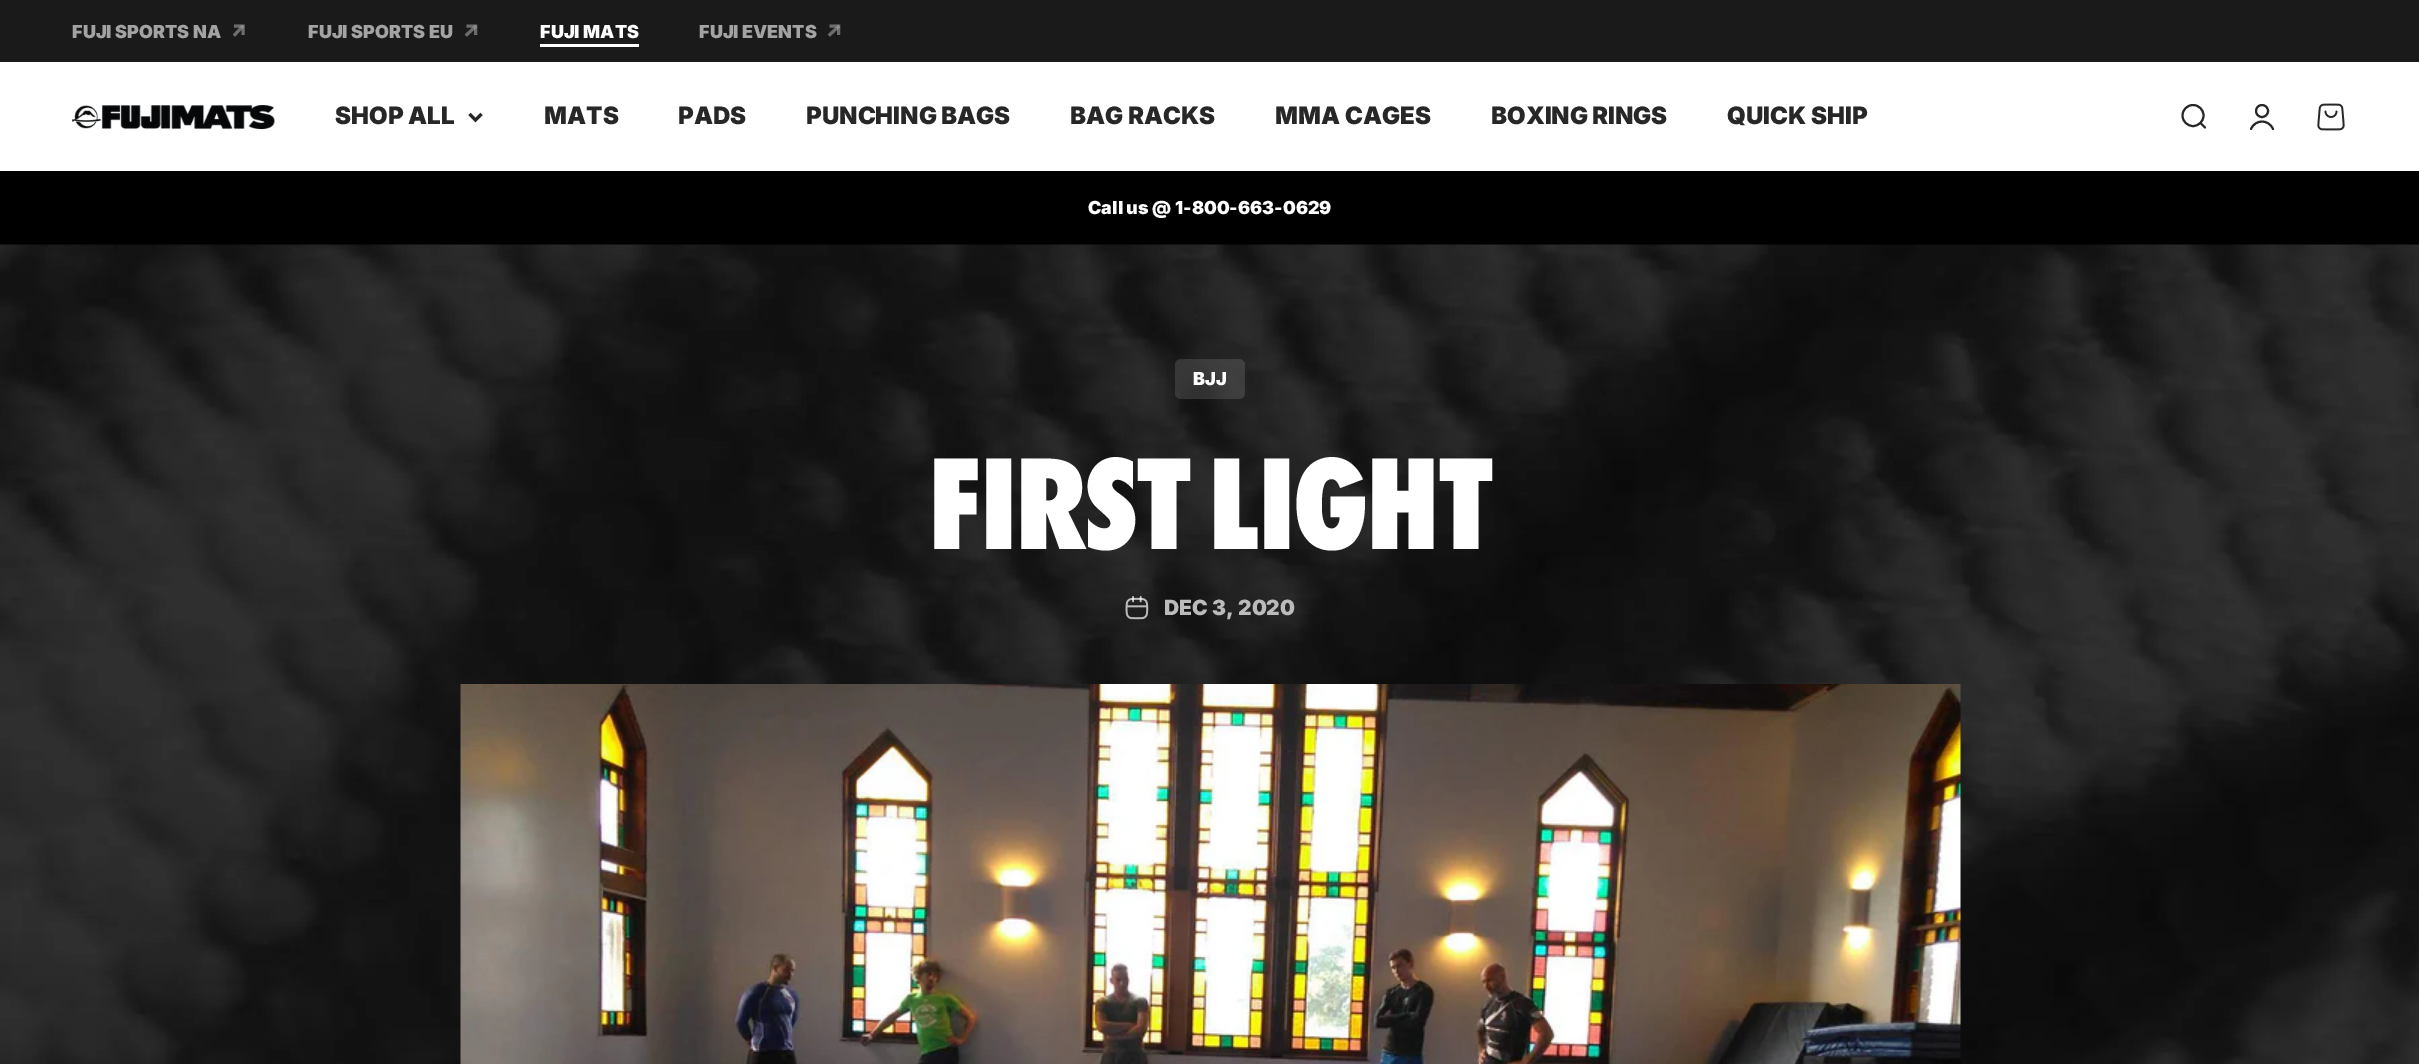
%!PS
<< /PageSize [2419 1064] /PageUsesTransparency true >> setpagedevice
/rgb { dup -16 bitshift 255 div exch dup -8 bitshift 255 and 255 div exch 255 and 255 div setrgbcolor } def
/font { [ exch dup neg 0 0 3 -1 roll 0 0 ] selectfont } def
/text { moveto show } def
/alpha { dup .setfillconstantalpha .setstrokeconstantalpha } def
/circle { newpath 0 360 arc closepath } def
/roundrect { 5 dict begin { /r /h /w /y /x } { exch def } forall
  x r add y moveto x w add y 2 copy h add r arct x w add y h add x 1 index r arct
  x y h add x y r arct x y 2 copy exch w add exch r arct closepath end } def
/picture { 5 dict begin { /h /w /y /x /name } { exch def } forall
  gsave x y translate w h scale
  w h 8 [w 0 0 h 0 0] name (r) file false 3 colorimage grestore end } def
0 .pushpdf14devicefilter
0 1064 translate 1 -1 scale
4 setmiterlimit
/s1 { /Inter-Black 18 font 16#A3A3A3 rgb } def
/s2 { /Inter-Black 18 font 16#FFFFFF rgb } def
/s3 { /Inter-Black 24 font 16#272727 rgb } def
/s4 { /Inter-Black 21 font 16#BBBBBB rgb } def
16#FFFFFF rgb
0 0 2419 1064 rectfill
16#1A1A1A rgb
0 0 2419 62 rectfill
s1
(FUJI SPORTS NA) 72 38 text
16#6C6C6C rgb
3 setlinewidth
2 setlinecap
1 setlinejoin
235 34.5 moveto 242 27 lineto stroke
0.6 alpha
16#A3A3A3 rgb
0 setlinejoin
235.5 26 moveto 243 26 lineto 243 33.5 lineto stroke
1 alpha
(FUJI SPORTS EU) 308 38 text
16#6C6C6C rgb
1 setlinejoin
467 34.5 moveto 475 27 lineto stroke
0.6 alpha
16#A3A3A3 rgb
0 setlinejoin
468 26 moveto 475.5 26 lineto 475.5 33.5 lineto stroke
1 alpha
16#FFFFFF rgb
540 44 99 3 rectfill
(FUJI MATS) 540 38 text
s1
(FUJI EVENTS) 699 38 text
16#6C6C6C rgb
1 setlinejoin
830 34.5 moveto 838 27 lineto stroke
0.6 alpha
16#A3A3A3 rgb
0 setlinejoin
831 26 moveto 838.5 26 lineto 838.5 33.5 lineto stroke
1 alpha
(pic1.raw) 72 105 203 25 picture
s3
(SHOP ALL) 335 124 text
0 setlinecap
469.5 114 moveto 475.5 120 lineto 481.5 114 lineto stroke
(MATS) 544 124 text
(PADS) 678 124 text
806 124 moveto -1 0 32 (PUNCHING BAGS) widthshow
(BAG RACKS) 1070 124 text
(MMA CAGES) 1275 124 text
1491 124 moveto -1 0 32 (BOXING RINGS) widthshow
(QUICK SHIP) 1727 124 text
2 setlinewidth
2193 115.5 10.5 circle stroke
1 setlinecap
1 setlinejoin
2200.5 123 moveto 2205 127.5 lineto stroke
0 setlinecap
0 setlinejoin
2262 111 6 circle stroke
1 setlinecap
2251 129 moveto 2255.5 119 2268.5 119 2273 129 curveto stroke
(pic2.raw) 2317 103 28 28 picture
16#000000 rgb
0 171 2419 74 rectfill
s2
(Call us @ 1-800-663-0629) 1088 214 text
(pic3.raw) 0 244 2419 820 picture
0.12 alpha
1175 359 70 40 6 roundrect fill
1 alpha
(BJJ) 1193 385 text
/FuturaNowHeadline-Black 120 font
928 549 moveto -2.4 0 (FIRST LIGHT) ashow
(pic4.raw) 1125 596 24 24 picture
s4
(DEC 3, 2020) 1164 615 text
(pic5.raw) 460 684 1501 380 picture
.poppdf14devicefilter showpage
